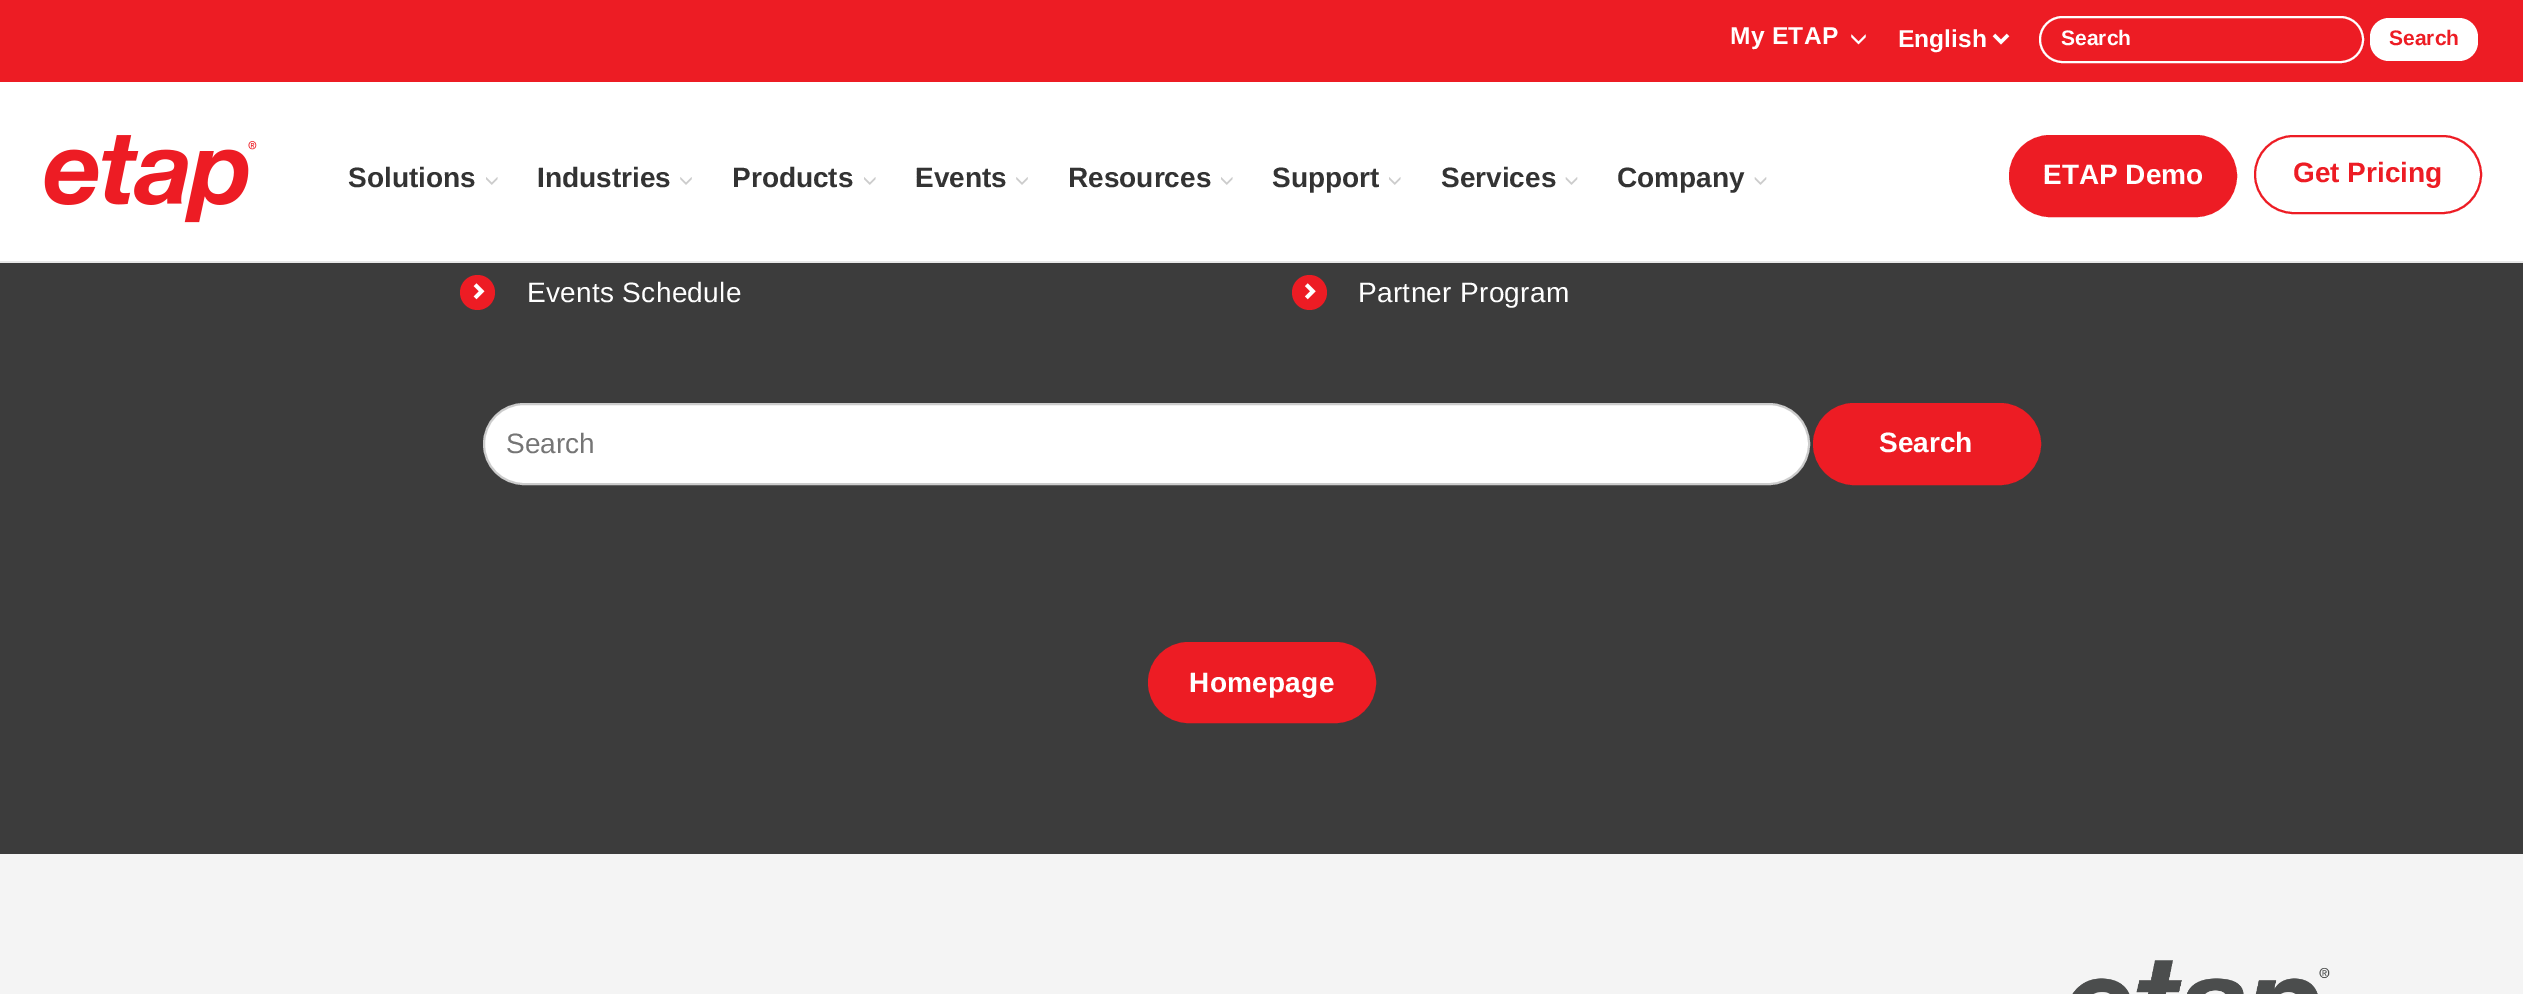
%!PS
<< /PageSize [2523 994] >> setpagedevice
/rgb { dup -16 bitshift 255 div exch dup -8 bitshift 255 and 255 div exch 255 and 255 div setrgbcolor } def
/font { [ exch dup neg 0 0 3 -1 roll 0 0 ] selectfont } def
/text { moveto show } def
/circle { newpath 0 360 arc closepath } def
/roundrect { 5 dict begin { /r /h /w /y /x } { exch def } forall
  x r add y moveto x w add y 2 copy h add r arct x w add y h add x 1 index r arct
  x y h add x y r arct x y 2 copy exch w add exch r arct closepath end } def
/picture { 5 dict begin { /h /w /y /x /name } { exch def } forall
  gsave x y translate w h scale
  w h 8 [w 0 0 h 0 0] name (r) file false 3 colorimage grestore end } def
0 994 translate 1 -1 scale
4 setmiterlimit
/s1 { /LiberationSans-Bold 24.5 font 16#FFFFFF rgb } def
/s2 { /LiberationSans-Bold 21 font 16#FFFFFF rgb } def
/s3 { /LiberationSans-Bold 21 font 16#ED1C24 rgb } def
/s4 { /LiberationSans-Bold 28 font 16#333333 rgb } def
/s5 { /LiberationSans-Bold 28 font 16#FFFFFF rgb } def
/s6 { /LiberationSans-Bold 28 font 16#ED1C24 rgb } def
/s7 { /LiberationSans-Regular 28 font 16#757575 rgb } def
16#3C3C3C rgb
0 0 2523 994 rectfill
16#FFFFFF rgb
0 82 2523 179 rectfill
16#E7E7E7 rgb
0 261 2523 2 rectfill
16#ED1C24 rgb
0 0 2523 82 rectfill
/LiberationSans-Bold 24.5 font
16#FFFFFF rgb
1730 44 moveto 0.3 0 (My ETAP) ashow
(pic1.raw) 1851 34 15 11 picture
3.5 setlinewidth
1994 35 moveto 2001 42 lineto 2008 35 lineto stroke
(English) 1898 47 text
2 setlinewidth
2040 17 323 45 22.5 roundrect stroke
s2
(Search) 2061 45 text
2370 18 108 43 19 roundrect fill
s3
(Search) 2389 45 text
(pic2.raw) 44 135 213 88 picture
s4
(Solutions) 348 187 text
(pic3.raw) 486 177 12 8 picture
(Industries) 537 187 text
(pic4.raw) 680 177 12 8 picture
(Products) 732 187 text
(pic3.raw) 864 177 12 8 picture
(Events) 915 187 text
(pic4.raw) 1016 177 12 8 picture
(Resources) 1068 187 text
(pic3.raw) 1221 177 12 8 picture
(Support) 1272 187 text
(pic3.raw) 1389 177 12 8 picture
(Services) 1441 187 text
(pic5.raw) 1565 177 13 8 picture
(Company) 1617 187 text
(pic5.raw) 1754 177 13 8 picture
16#ED1C24 rgb
2011 137 224 78 39 roundrect gsave fill grestore
4 setlinewidth
stroke
s5
(ETAP Demo) 2043 184 text
16#ED1C24 rgb
2 setlinewidth
2255 136 226 77 38.5 roundrect stroke
(Get Pricing) 2293 182 text
477.5 292.5 17.5 circle fill
(pic6.raw) 473 283 12 17 picture
/LiberationSans-Regular 28 font
16#FFFFFF rgb
527 302 moveto 0.3 0 (Events Schedule) ashow
16#ED1C24 rgb
1309.5 292.5 17.5 circle fill
(pic7.raw) 1304 283 12 17 picture
16#FFFFFF rgb
1358 302 moveto 0.3 0 (Partner Program) ashow
484 404 1325 80 40 roundrect gsave fill grestore
16#CCCCCC rgb
stroke
s7
(Search) 506 453 text
16#ED1C24 rgb
1815 405 224 78 39 roundrect gsave fill grestore
4 setlinewidth
stroke
s5
(Search) 1879 452 text
16#ED1C24 rgb
1150 644 224 77 38.5 roundrect gsave fill grestore
stroke
16#FFFFFF rgb
1189 692 moveto 0.3 0 (Homepage) ashow
16#F4F4F4 rgb
0 854 2523 140 rectfill
(pic8.raw) 2072 960 258 34 picture
showpage
